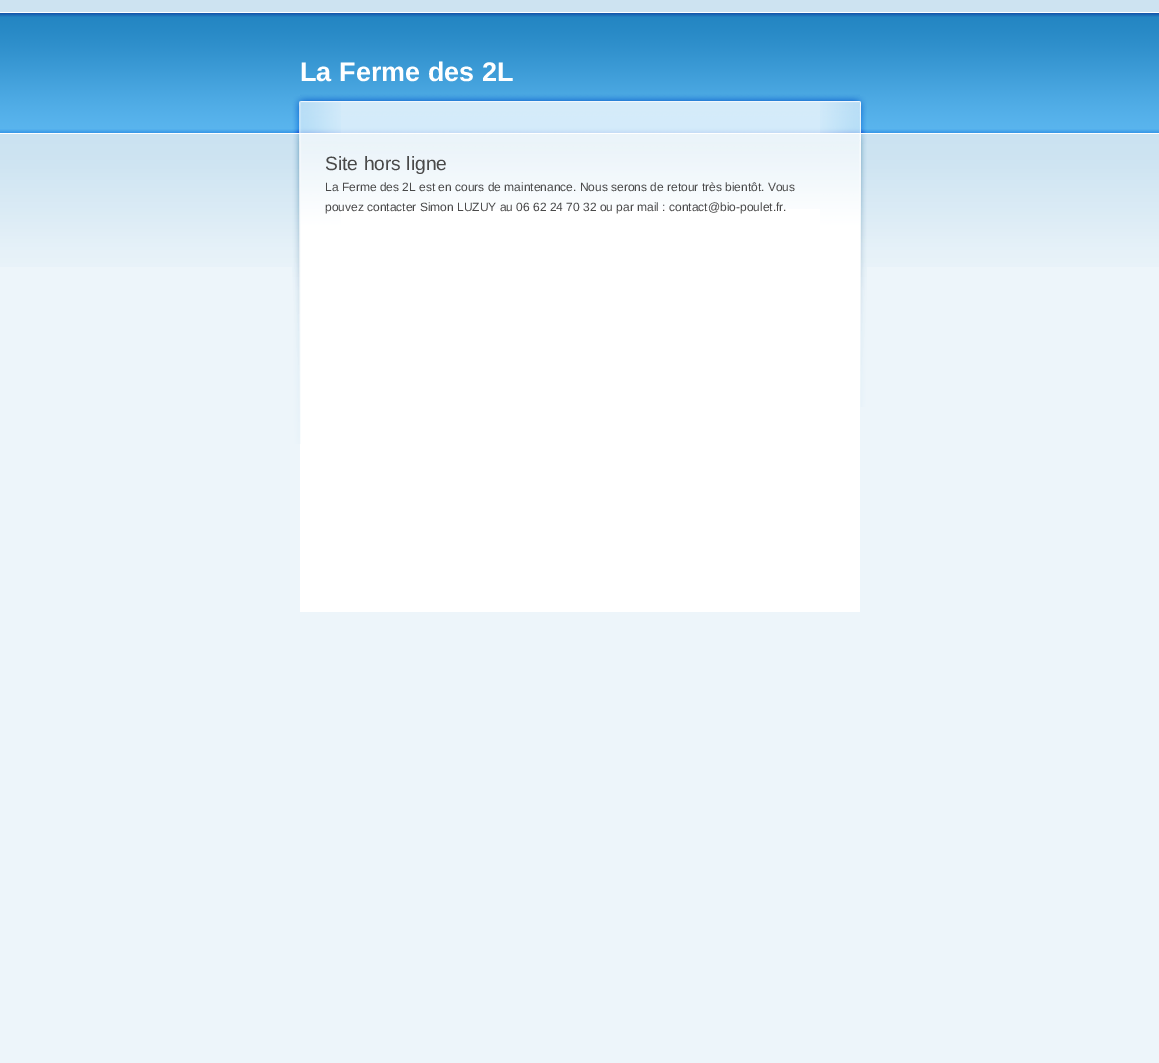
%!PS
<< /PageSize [1159 1063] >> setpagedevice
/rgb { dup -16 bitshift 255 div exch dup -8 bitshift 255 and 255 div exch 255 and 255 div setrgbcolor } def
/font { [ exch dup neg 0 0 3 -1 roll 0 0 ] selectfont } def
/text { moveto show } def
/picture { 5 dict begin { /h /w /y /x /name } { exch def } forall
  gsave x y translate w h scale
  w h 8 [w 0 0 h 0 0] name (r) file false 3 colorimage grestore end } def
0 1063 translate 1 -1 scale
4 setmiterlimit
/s1 { /LiberationSans-Bold 27 font 16#FFFFFF rgb } def
/s2 { /LiberationSans-Regular 19.25 font 16#494949 rgb } def
/s3 { /LiberationSans-Regular 12 font 16#494949 rgb } def
16#EDF5FA rgb
0 0 1159 1063 rectfill
16#CDE3F1 rgb
0 0 1159 12 rectfill
(pic1.raw) 0 12 1159 255 picture
s1
(La Ferme des 2L) 300 81 text
300 209 560 403 rectfill
(pic2.raw) 300 92 560 117 picture
(pic3.raw) 820 96 47 311 picture
(pic4.raw) 292 96 49 348 picture
s2
(Site hors ligne) 325 170 text
s3
(La Ferme des 2L est en cours de maintenance. Nous serons de retour très bientôt. Vous) 325 191 text
(pouvez contacter Simon LUZUY au 06 62 24 70 32 ou par mail : contact@bio-poulet.fr.) 325 211 text
showpage
